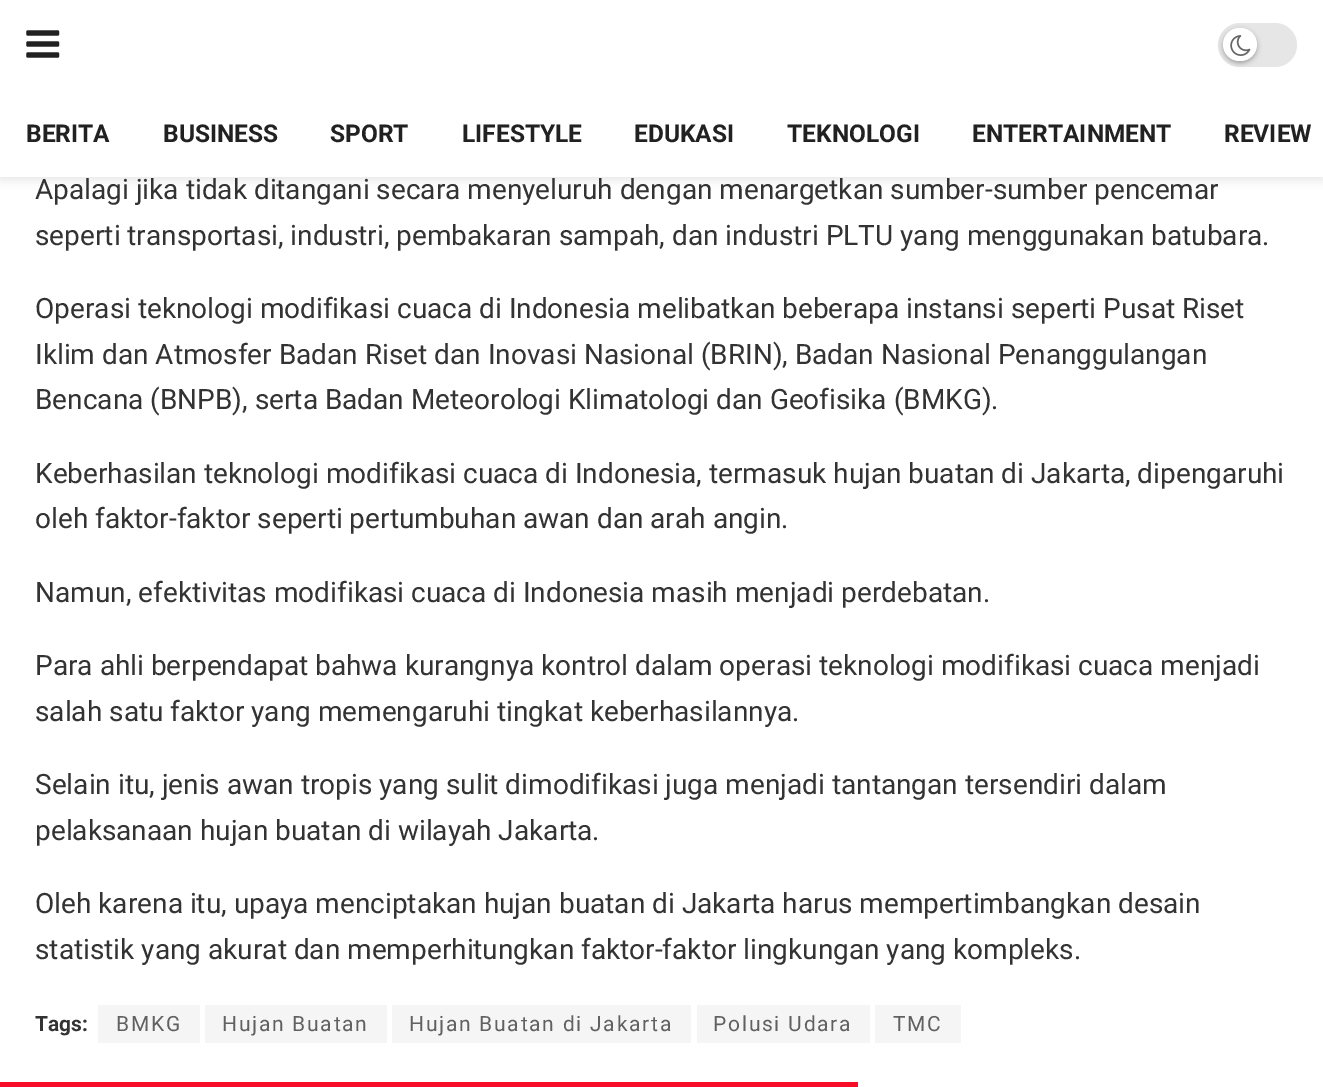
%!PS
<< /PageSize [1323 1087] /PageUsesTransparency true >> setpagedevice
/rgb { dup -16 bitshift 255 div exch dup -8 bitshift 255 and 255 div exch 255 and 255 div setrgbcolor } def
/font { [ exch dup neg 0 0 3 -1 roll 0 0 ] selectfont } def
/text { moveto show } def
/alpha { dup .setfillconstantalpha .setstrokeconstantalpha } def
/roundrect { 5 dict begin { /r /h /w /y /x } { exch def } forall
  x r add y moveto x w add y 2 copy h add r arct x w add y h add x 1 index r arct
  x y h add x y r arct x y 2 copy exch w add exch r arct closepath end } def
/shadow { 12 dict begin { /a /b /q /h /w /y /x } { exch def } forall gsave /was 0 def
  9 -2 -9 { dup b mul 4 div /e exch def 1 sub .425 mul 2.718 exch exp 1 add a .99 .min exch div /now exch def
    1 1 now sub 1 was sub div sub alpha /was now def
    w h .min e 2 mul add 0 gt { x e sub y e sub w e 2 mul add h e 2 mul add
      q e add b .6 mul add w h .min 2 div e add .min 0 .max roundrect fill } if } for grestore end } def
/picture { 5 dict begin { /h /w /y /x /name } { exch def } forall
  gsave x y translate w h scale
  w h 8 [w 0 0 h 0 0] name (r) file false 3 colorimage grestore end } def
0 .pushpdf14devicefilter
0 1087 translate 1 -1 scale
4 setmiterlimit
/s1 { /Roboto-Bold 24.5 font 16#212121 rgb } def
/s2 { /Roboto-Regular 28 font 16#333333 rgb } def
/s3 { /Roboto-Bold 21 font 16#333333 rgb } def
16#FFFFFF rgb
0 0 1323 1087 rectfill
16#000000 rgb
0 4 1323 176 0 5 0.1 shadow
16#FFFFFF rgb
0 0 1323 177 rectfill
(pic1.raw) 26 30 34 28 picture
16#E6E6E6 rgb
1218 23 79 44 22 roundrect fill
16#000000 rgb
1223 30 34 33 16.5 2.5 0.3 shadow
16#FFFFFF rgb
1223 28 34 33 16.5 roundrect fill
(pic2.raw) 1230 35 21 21 picture
s1
(BERITA) 26 142 text
(BUSINESS) 163 142 text
(SPORT) 330 142 text
(LIFESTYLE) 462 142 text
(EDUKASI) 634 142 text
(TEKNOLOGI) 787 142 text
(ENTERTAINMENT) 972 142 text
(REVIEW) 1224 142 text
s2
(Apalagi jika tidak ditangani secara menyeluruh dengan menargetkan sumber-sumber pencemar) 35 199 text
(seperti transportasi, industri, pembakaran sampah, dan industri PLTU yang menggunakan batubara.) 35 245 text
(Operasi teknologi modifikasi cuaca di Indonesia melibatkan beberapa instansi seperti Pusat Riset) 35 318 text
(Iklim dan Atmosfer Badan Riset dan Inovasi Nasional \(BRIN\), Badan Nasional Penanggulangan) 35 364 text
(Bencana \(BNPB\), serta Badan Meteorologi Klimatologi dan Geofisika \(BMKG\).) 35 409 text
(Keberhasilan teknologi modifikasi cuaca di Indonesia, termasuk hujan buatan di Jakarta, dipengaruhi) 35 483 text
(oleh faktor-faktor seperti pertumbuhan awan dan arah angin.) 35 528 text
(Namun, efektivitas modifikasi cuaca di Indonesia masih menjadi perdebatan.) 35 602 text
(Para ahli berpendapat bahwa kurangnya kontrol dalam operasi teknologi modifikasi cuaca menjadi) 35 675 text
(salah satu faktor yang memengaruhi tingkat keberhasilannya.) 35 721 text
(Selain itu, jenis awan tropis yang sulit dimodifikasi juga menjadi tantangan tersendiri dalam) 35 794 text
(pelaksanaan hujan buatan di wilayah Jakarta.) 35 840 text
(Oleh karena itu, upaya menciptakan hujan buatan di Jakarta harus mempertimbangkan desain) 35 913 text
(statistik yang akurat dan memperhitungkan faktor-faktor lingkungan yang kompleks.) 35 959 text
s3
(Tags:) 35 1031 text
16#F5F5F5 rgb
98 1005 102 38 rectfill
/Roboto-Regular 21 font
16#616161 rgb
116 1031 moveto 1.75 0 (BMKG) ashow
16#F5F5F5 rgb
205 1005 182 38 rectfill
16#616161 rgb
222 1031 moveto 1.75 0 (Hujan Buatan) ashow
16#F5F5F5 rgb
392 1005 299 38 rectfill
16#616161 rgb
409 1031 moveto 1.75 0 (Hujan Buatan di Jakarta) ashow
16#F5F5F5 rgb
697 1005 173 38 rectfill
16#616161 rgb
713 1031 moveto 1.75 0 (Polusi Udara) ashow
16#F5F5F5 rgb
875 1005 86 38 rectfill
16#616161 rgb
893 1031 moveto 1.75 0 (TMC) ashow
16#F70D28 rgb
0 1082 858 5 rectfill
.poppdf14devicefilter showpage
